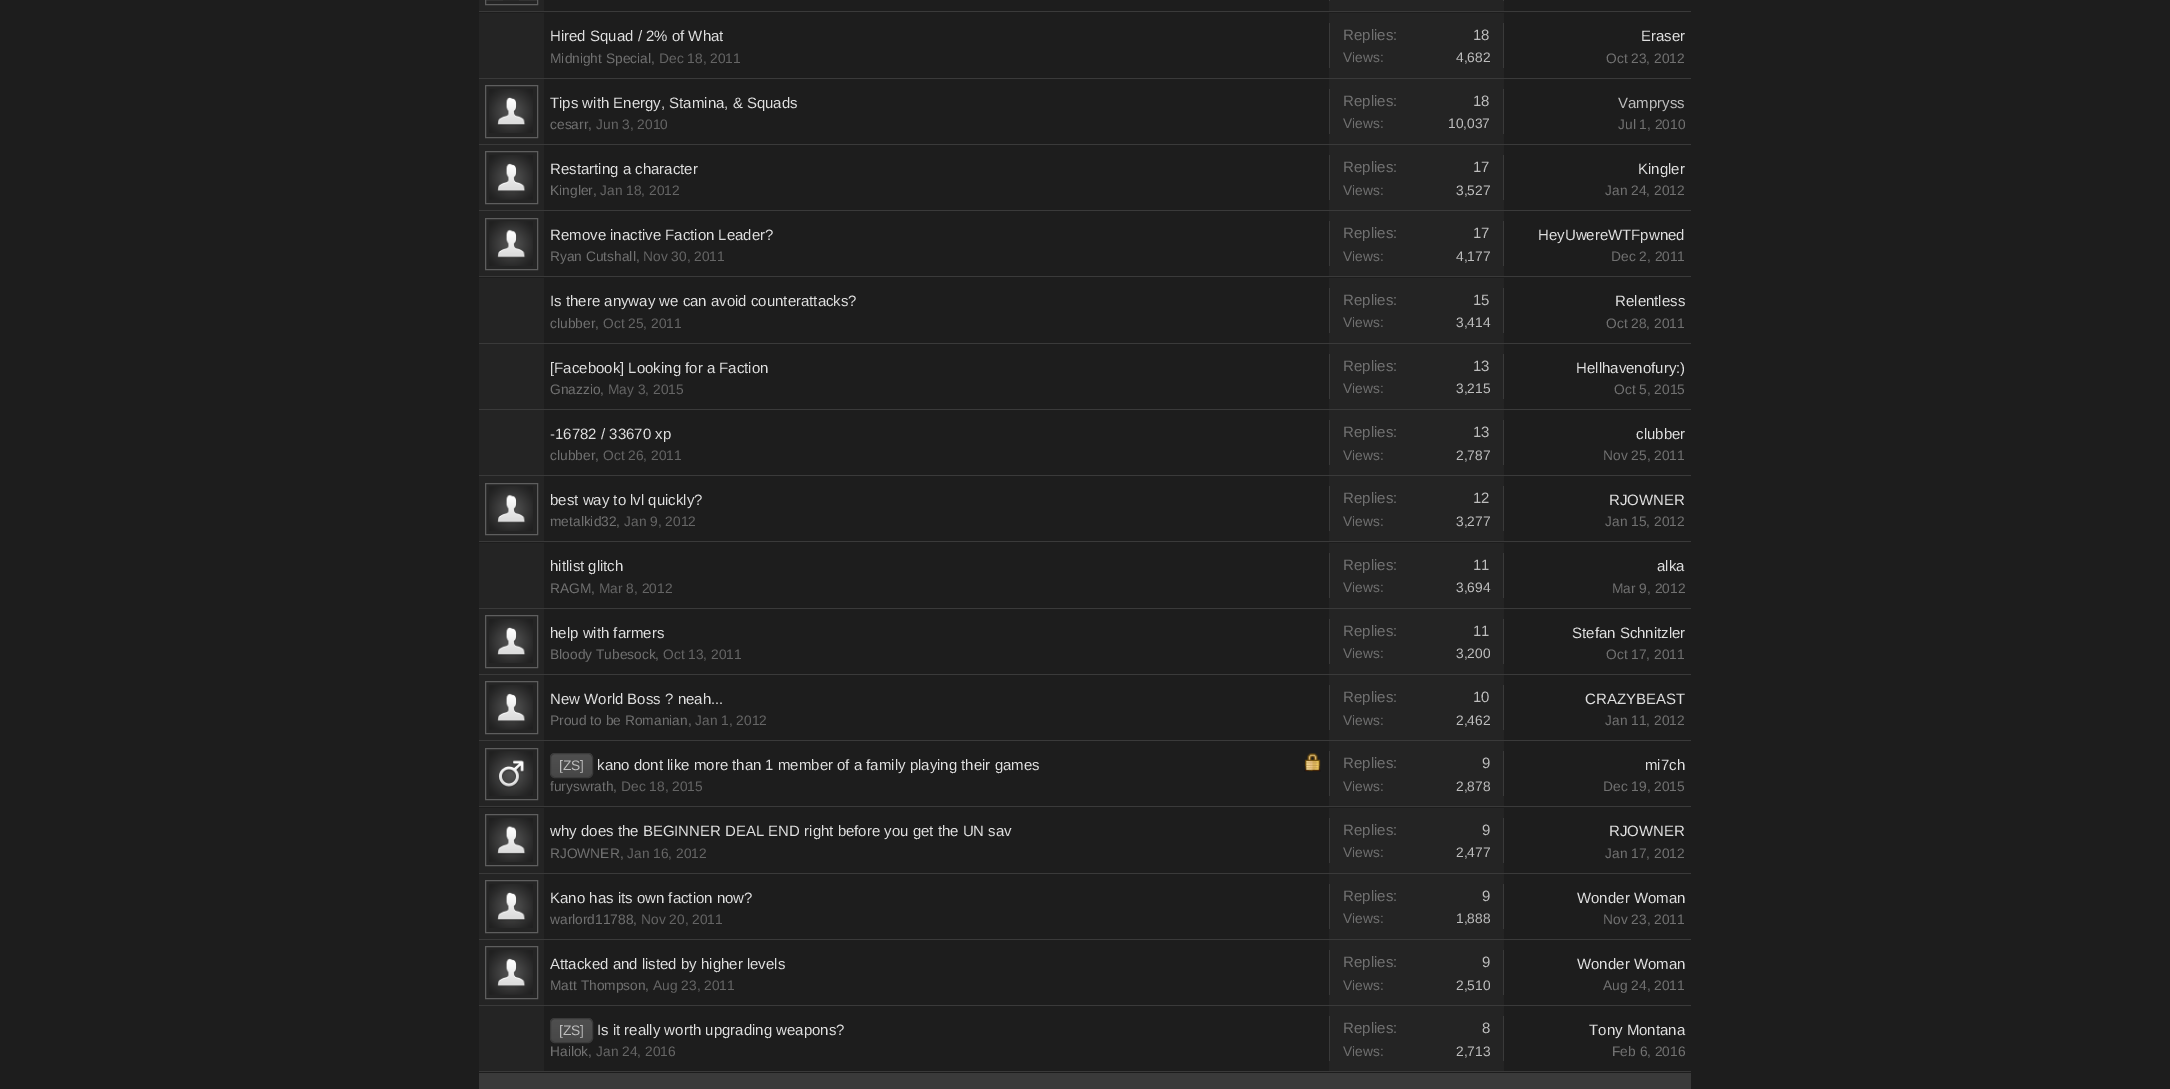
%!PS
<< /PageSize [2170 1089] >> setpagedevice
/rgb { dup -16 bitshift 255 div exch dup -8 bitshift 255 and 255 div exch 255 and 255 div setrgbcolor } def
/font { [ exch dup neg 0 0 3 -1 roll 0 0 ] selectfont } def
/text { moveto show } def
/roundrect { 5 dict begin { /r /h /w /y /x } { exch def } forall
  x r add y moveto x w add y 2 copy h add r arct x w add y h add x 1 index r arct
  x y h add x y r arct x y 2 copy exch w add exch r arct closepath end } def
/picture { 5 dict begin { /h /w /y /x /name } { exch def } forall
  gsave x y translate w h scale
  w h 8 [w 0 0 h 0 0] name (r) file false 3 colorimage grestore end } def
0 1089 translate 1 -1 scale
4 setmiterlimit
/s1 { /LiberationSans-Regular 15 font 16#DFDFDF rgb } def
/s2 { /LiberationSans-Regular 13.75 font 16#717171 rgb } def
/s3 { /LiberationSans-Regular 13.75 font 16#656565 rgb } def
/s4 { /LiberationSans-Regular 15 font 16#717171 rgb } def
/s5 { /LiberationSans-Regular 15 font 16#BEBEBE rgb } def
/s6 { /LiberationSans-Regular 13.75 font 16#BEBEBE rgb } def
16#1D1D1D rgb
0 0 2170 1089 rectfill
16#3A3A3A rgb
479 11 1212 1 rectfill
16#242424 rgb
479 0 65 11 rectfill
16#5E5E5E rgb
485.5 -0.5 52 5 rectstroke
16#2A2A2A rgb
503 0 16 1 rectfill
16#242424 rgb
1329 0 175 11 rectfill
16#3A3A3A rgb
1503 0 1 1 rectfill
1329 0 1 1 rectfill
479 78 1212 1 rectfill
16#242424 rgb
479 13 65 65 rectfill
s1
(Hired Squad / 2% of What) 550 41 text
s2
(Midnight Special,) 550 63 text
s3
(Dec 18, 2011) 659 63 text
16#242424 rgb
1329 13 175 65 rectfill
16#3A3A3A rgb
1503 23 1 45 rectfill
1329 23 1 45 rectfill
s4
(Replies:) 1343 40 text
s5
(18) 1473 40 text
s2
(Views:) 1343 62 text
s6
(4,682) 1456 62 text
s1
(Eraser) 1641 41 text
s2
(Oct 23, 2012) 1606 63 text
16#3A3A3A rgb
479 144 1212 1 rectfill
16#242424 rgb
479 79 65 65 rectfill
16#5E5E5E rgb
485.5 85.5 52 52 rectstroke
(pic1.raw) 489 89 44 44 picture
s1
(Tips with Energy, Stamina, & Squads) 550 108 text
s2
(cesarr,) 550 129 text
s3
(Jun 3, 2010) 596 129 text
16#242424 rgb
1329 79 175 65 rectfill
16#3A3A3A rgb
1503 89 1 45 rectfill
1329 89 1 45 rectfill
s4
(Replies:) 1343 106 text
s5
(18) 1473 106 text
s2
(Views:) 1343 128 text
s6
(10,037) 1448 128 text
s5
(Vampryss) 1618 108 text
s2
(Jul 1, 2010) 1618 129 text
16#3A3A3A rgb
479 210 1212 1 rectfill
16#242424 rgb
479 145 65 65 rectfill
16#5E5E5E rgb
485.5 151.5 52 52 rectstroke
(pic2.raw) 489 155 44 45 picture
s1
(Restarting a character) 550 174 text
s2
(Kingler,) 550 195 text
s3
(Jan 18, 2012) 600 195 text
16#242424 rgb
1329 145 175 65 rectfill
16#3A3A3A rgb
1503 155 1 45 rectfill
1329 155 1 45 rectfill
s4
(Replies:) 1343 172 text
s5
(17) 1473 172 text
s2
(Views:) 1343 195 text
s6
(3,527) 1456 195 text
s1
(Kingler) 1638 174 text
s2
(Jan 24, 2012) 1605 195 text
16#3A3A3A rgb
479 276 1212 1 rectfill
16#242424 rgb
479 211 65 65 rectfill
16#5E5E5E rgb
485.5 218.5 52 51 rectstroke
(pic3.raw) 489 221 44 45 picture
s1
(Remove inactive Faction Leader?) 550 240 text
s2
(Ryan Cutshall,) 550 261 text
s3
(Nov 30, 2011) 643 261 text
16#242424 rgb
1329 211 175 65 rectfill
16#3A3A3A rgb
1503 221 1 45 rectfill
1329 221 1 45 rectfill
s4
(Replies:) 1343 238 text
s5
(17) 1473 238 text
s2
(Views:) 1343 261 text
s6
(4,177) 1456 261 text
s1
(HeyUwereWTFpwned) 1538 240 text
s2
(Dec 2, 2011) 1611 261 text
16#3A3A3A rgb
479 343 1212 1 rectfill
16#242424 rgb
479 278 65 65 rectfill
s1
(Is there anyway we can avoid counterattacks?) 550 306 text
s2
(clubber,) 550 328 text
s3
(Oct 25, 2011) 603 328 text
16#242424 rgb
1329 278 175 65 rectfill
16#3A3A3A rgb
1503 288 1 45 rectfill
1329 288 1 45 rectfill
s4
(Replies:) 1343 305 text
s5
(15) 1473 305 text
s2
(Views:) 1343 327 text
s6
(3,414) 1456 327 text
s1
(Relentless) 1615 306 text
s2
(Oct 28, 2011) 1606 328 text
16#3A3A3A rgb
479 409 1212 1 rectfill
16#242424 rgb
479 344 65 65 rectfill
s1
([Facebook] Looking for a Faction) 550 373 text
s2
(Gnazzio,) 550 394 text
s3
(May 3, 2015) 608 394 text
16#242424 rgb
1329 344 175 65 rectfill
16#3A3A3A rgb
1503 354 1 45 rectfill
1329 354 1 45 rectfill
s4
(Replies:) 1343 371 text
s5
(13) 1473 371 text
s2
(Views:) 1343 393 text
s6
(3,215) 1456 393 text
s1
(Hellhavenofury:\)) 1576 373 text
s2
(Oct 5, 2015) 1614 394 text
16#3A3A3A rgb
479 475 1212 1 rectfill
16#242424 rgb
479 410 65 65 rectfill
s1
(-16782 / 33670 xp) 550 439 text
s2
(clubber,) 550 460 text
s3
(Oct 26, 2011) 603 460 text
16#242424 rgb
1329 410 175 65 rectfill
16#3A3A3A rgb
1503 420 1 45 rectfill
1329 420 1 45 rectfill
s4
(Replies:) 1343 437 text
s5
(13) 1473 437 text
s2
(Views:) 1343 460 text
s6
(2,787) 1456 460 text
s1
(clubber) 1636 439 text
s2
(Nov 25, 2011) 1603 460 text
16#3A3A3A rgb
479 541 1212 1 rectfill
16#242424 rgb
479 476 65 65 rectfill
16#5E5E5E rgb
485.5 483.5 52 51 rectstroke
(pic3.raw) 489 486 44 45 picture
s1
(best way to lvl quickly?) 550 505 text
s2
(metalkid32,) 550 526 text
s3
(Jan 9, 2012) 624 526 text
16#242424 rgb
1329 476 175 65 rectfill
16#3A3A3A rgb
1503 486 1 45 rectfill
1329 486 1 45 rectfill
s4
(Replies:) 1343 503 text
s5
(12) 1473 503 text
s2
(Views:) 1343 526 text
s6
(3,277) 1456 526 text
s1
(RJOWNER) 1609 505 text
s2
(Jan 15, 2012) 1605 526 text
16#3A3A3A rgb
479 608 1212 1 rectfill
16#242424 rgb
479 543 65 65 rectfill
s1
(hitlist glitch) 550 571 text
s2
(RAGM,) 550 593 text
s3
(Mar 8, 2012) 599 593 text
16#242424 rgb
1329 543 175 65 rectfill
16#3A3A3A rgb
1503 553 1 45 rectfill
1329 553 1 45 rectfill
s4
(Replies:) 1343 570 text
s5
(11) 1473 570 text
s2
(Views:) 1343 592 text
s6
(3,694) 1456 592 text
s1
(alka) 1657 571 text
s2
(Mar 9, 2012) 1612 593 text
16#3A3A3A rgb
479 674 1212 1 rectfill
16#242424 rgb
479 609 65 65 rectfill
16#5E5E5E rgb
485.5 615.5 52 52 rectstroke
(pic1.raw) 489 619 44 44 picture
s1
(help with farmers) 550 638 text
s2
(Bloody Tubesock,) 550 659 text
s3
(Oct 13, 2011) 663 659 text
16#242424 rgb
1329 609 175 65 rectfill
16#3A3A3A rgb
1503 619 1 45 rectfill
1329 619 1 45 rectfill
s4
(Replies:) 1343 636 text
s5
(11) 1473 636 text
s2
(Views:) 1343 658 text
s6
(3,200) 1456 658 text
s1
(Stefan Schnitzler) 1572 638 text
s2
(Oct 17, 2011) 1606 659 text
16#3A3A3A rgb
479 740 1212 1 rectfill
16#242424 rgb
479 675 65 65 rectfill
16#5E5E5E rgb
485.5 681.5 52 52 rectstroke
(pic2.raw) 489 685 44 45 picture
s1
(New World Boss ? neah...) 550 704 text
s2
(Proud to be Romanian,) 550 725 text
s3
(Jan 1, 2012) 695 725 text
16#242424 rgb
1329 675 175 65 rectfill
16#3A3A3A rgb
1503 685 1 45 rectfill
1329 685 1 45 rectfill
s4
(Replies:) 1343 702 text
s5
(10) 1473 702 text
s2
(Views:) 1343 725 text
s6
(2,462) 1456 725 text
s1
(CRAZYBEAST) 1585 704 text
s2
(Jan 11, 2012) 1605 725 text
16#3A3A3A rgb
479 806 1212 1 rectfill
16#242424 rgb
479 741 65 65 rectfill
16#5E5E5E rgb
485.5 748.5 52 51 rectstroke
(pic4.raw) 489 751 44 45 picture
16#3A3A3A rgb
550 753 43 25 5 roundrect fill
(pic5.raw) 550 753 43 24 picture
550.5 753.5 42 24 4.5 roundrect stroke
s6
([ZS]) 559 770 text
s1
(kano dont like more than 1 member of a family playing their games) 597 770 text
(pic6.raw) 1304 753 17 19 picture
s2
(furyswrath,) 550 791 text
s3
(Dec 18, 2015) 621 791 text
16#242424 rgb
1329 741 175 65 rectfill
16#3A3A3A rgb
1503 751 1 45 rectfill
1329 751 1 45 rectfill
s4
(Replies:) 1343 768 text
s5
(9) 1482 768 text
s2
(Views:) 1343 791 text
s6
(2,878) 1456 791 text
s1
(mi7ch) 1645 770 text
s2
(Dec 19, 2015) 1603 791 text
16#3A3A3A rgb
479 873 1212 1 rectfill
16#242424 rgb
479 808 65 65 rectfill
16#5E5E5E rgb
485.5 814.5 52 51 rectstroke
(pic7.raw) 489 818 44 44 picture
s1
(why does the BEGINNER DEAL END right before you get the UN sav) 550 836 text
s2
(RJOWNER,) 550 858 text
s3
(Jan 16, 2012) 627 858 text
16#242424 rgb
1329 808 175 65 rectfill
16#3A3A3A rgb
1503 818 1 45 rectfill
1329 818 1 45 rectfill
s4
(Replies:) 1343 835 text
s5
(9) 1482 835 text
s2
(Views:) 1343 857 text
s6
(2,477) 1456 857 text
s1
(RJOWNER) 1609 836 text
s2
(Jan 17, 2012) 1605 858 text
16#3A3A3A rgb
479 939 1212 1 rectfill
16#242424 rgb
479 874 65 65 rectfill
16#5E5E5E rgb
485.5 880.5 52 52 rectstroke
(pic1.raw) 489 884 44 44 picture
s1
(Kano has its own faction now?) 550 903 text
s2
(warlord11788,) 550 924 text
s3
(Nov 20, 2011) 641 924 text
16#242424 rgb
1329 874 175 65 rectfill
16#3A3A3A rgb
1503 884 1 45 rectfill
1329 884 1 45 rectfill
s4
(Replies:) 1343 901 text
s5
(9) 1482 901 text
s2
(Views:) 1343 923 text
s6
(1,888) 1456 923 text
s1
(Wonder Woman) 1577 903 text
s2
(Nov 23, 2011) 1603 924 text
16#3A3A3A rgb
479 1005 1212 1 rectfill
16#242424 rgb
479 940 65 65 rectfill
16#5E5E5E rgb
485.5 946.5 52 52 rectstroke
(pic2.raw) 489 950 44 45 picture
s1
(Attacked and listed by higher levels) 550 969 text
s2
(Matt Thompson,) 550 990 text
s3
(Aug 23, 2011) 653 990 text
16#242424 rgb
1329 940 175 65 rectfill
16#3A3A3A rgb
1503 950 1 45 rectfill
1329 950 1 45 rectfill
s4
(Replies:) 1343 967 text
s5
(9) 1482 967 text
s2
(Views:) 1343 990 text
s6
(2,510) 1456 990 text
s1
(Wonder Woman) 1577 969 text
s2
(Aug 24, 2011) 1603 990 text
16#3A3A3A rgb
479 1071 1212 1 rectfill
16#242424 rgb
479 1006 65 65 rectfill
16#3A3A3A rgb
550 1018 43 25 5 roundrect fill
(pic5.raw) 550 1018 43 24 picture
550.5 1018.5 42 24 4.5 roundrect stroke
s6
([ZS]) 559 1035 text
s1
(Is it really worth upgrading weapons?) 597 1035 text
s2
(Hailok,) 550 1056 text
s3
(Jan 24, 2016) 596 1056 text
16#242424 rgb
1329 1006 175 65 rectfill
16#3A3A3A rgb
1503 1016 1 45 rectfill
1329 1016 1 45 rectfill
s4
(Replies:) 1343 1033 text
s5
(8) 1482 1033 text
s2
(Views:) 1343 1056 text
s6
(2,713) 1456 1056 text
s1
(Tony Montana) 1589 1035 text
s2
(Feb 6, 2016) 1612 1056 text
16#3A3A3A rgb
479 1073 1212 16 rectfill
showpage
